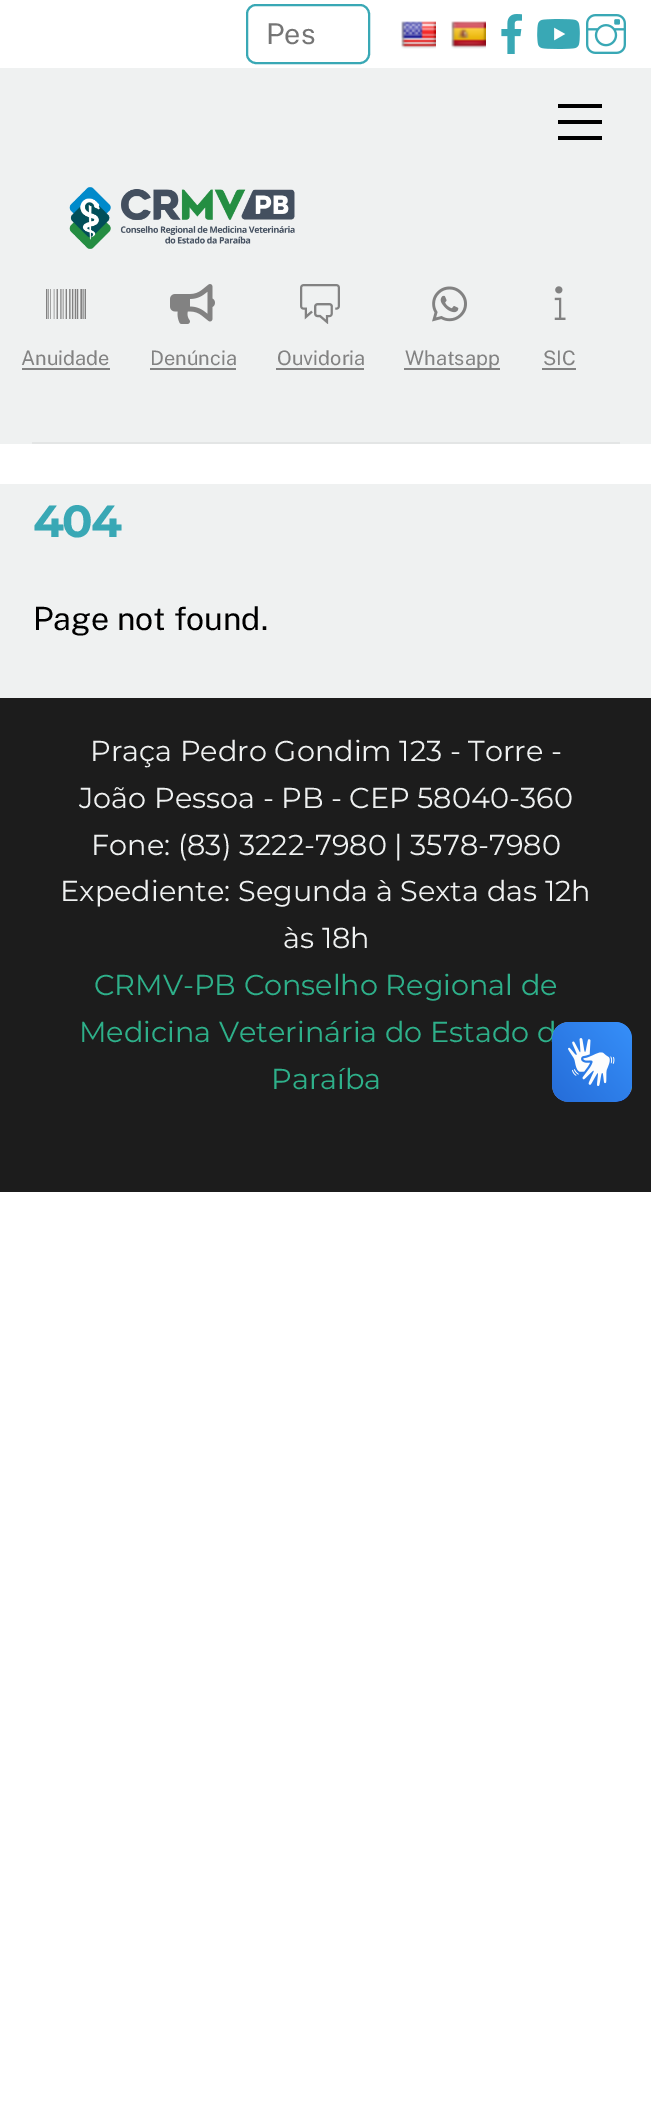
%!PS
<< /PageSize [651 2121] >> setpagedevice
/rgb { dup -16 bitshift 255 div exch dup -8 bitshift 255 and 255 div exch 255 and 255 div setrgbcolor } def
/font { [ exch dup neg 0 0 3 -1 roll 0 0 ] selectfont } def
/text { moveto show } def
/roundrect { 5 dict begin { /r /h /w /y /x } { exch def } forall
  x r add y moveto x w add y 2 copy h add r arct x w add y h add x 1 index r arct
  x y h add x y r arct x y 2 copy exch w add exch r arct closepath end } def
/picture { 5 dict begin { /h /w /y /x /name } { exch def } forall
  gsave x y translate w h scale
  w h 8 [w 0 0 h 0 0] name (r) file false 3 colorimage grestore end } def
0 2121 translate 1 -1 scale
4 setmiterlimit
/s1 { /PublicSans-Regular 28.75 font 16#757575 rgb } def
/s2 { /PublicSans-Regular 20 font 16#828282 rgb } def
/s3 { /PublicSans-Regular 32 font 16#000000 rgb } def
/s4 { /Montserrat-Regular 28.75 font 16#EFF1F1 rgb } def
/s5 { /Montserrat-Regular 28.75 font 16#2EB08A rgb } def
16#FFFFFF rgb
0 0 651 2121 rectfill
16#EFF1F1 rgb
0 68 651 376 rectfill
16#E3E5E5 rgb
32 442 588 2 rectfill
16#39A8B5 rgb
2 setlinewidth
247 5 122 58 9 roundrect stroke
s1
(Pes) 266 44 text
(pic1.raw) 401 21 35 28 picture
(pic2.raw) 451 21 35 28 picture
(pic3.raw) 501 14 21 40 picture
(pic4.raw) 537 19 43 30 picture
(pic5.raw) 586 14 40 40 picture
(pic6.raw) 46 289 40 30 picture
s2
(Anuidade) 21 365 text
22 368 88 2 rectfill
(pic7.raw) 170 284 45 40 picture
(Denúncia) 150 365 text
150 368 86 2 rectfill
(pic8.raw) 300 284 40 40 picture
(Ouvidoria) 277 365 text
276 368 88 2 rectfill
(pic9.raw) 432 286 35 36 picture
404 368 96 2 rectfill
(Whatsapp) 405 365 text
(pic10.raw) 554 286 12 34 picture
(SIC) 543 365 text
542 368 34 2 rectfill
(pic11.raw) 69 187 226 62 picture
16#000000 rgb
558 136 44 4 rectfill
558 104 44 4 rectfill
558 120 44 4 rectfill
16#EFF1F1 rgb
0 484 651 214 rectfill
/Montserrat-Bold 45 font
16#39A8B5 rgb
33 537 moveto -2 0 (404) ashow
s3
(Page not found.) 33 630 text
16#1C1C1C rgb
0 698 651 494 rectfill
s4
(Praça Pedro Gondim 123 - Torre -) 90 761 text
(João Pessoa - PB - CEP 58040-360) 79 808 text
(Fone: \(83\) 3222-7980 | 3578-7980) 91 855 text
(Expediente: Segunda à Sexta das 12h) 60 901 text
(às 18h) 283 948 text
s5
(CRMV-PB Conselho Regional de) 94 995 text
(Medicina Veterinária do Estado d) 79 1042 text
(Paraíba) 271 1089 text
(pic12.raw) 552 1022 80 80 picture
(pic13.raw) 552 1022 80 80 picture
showpage
